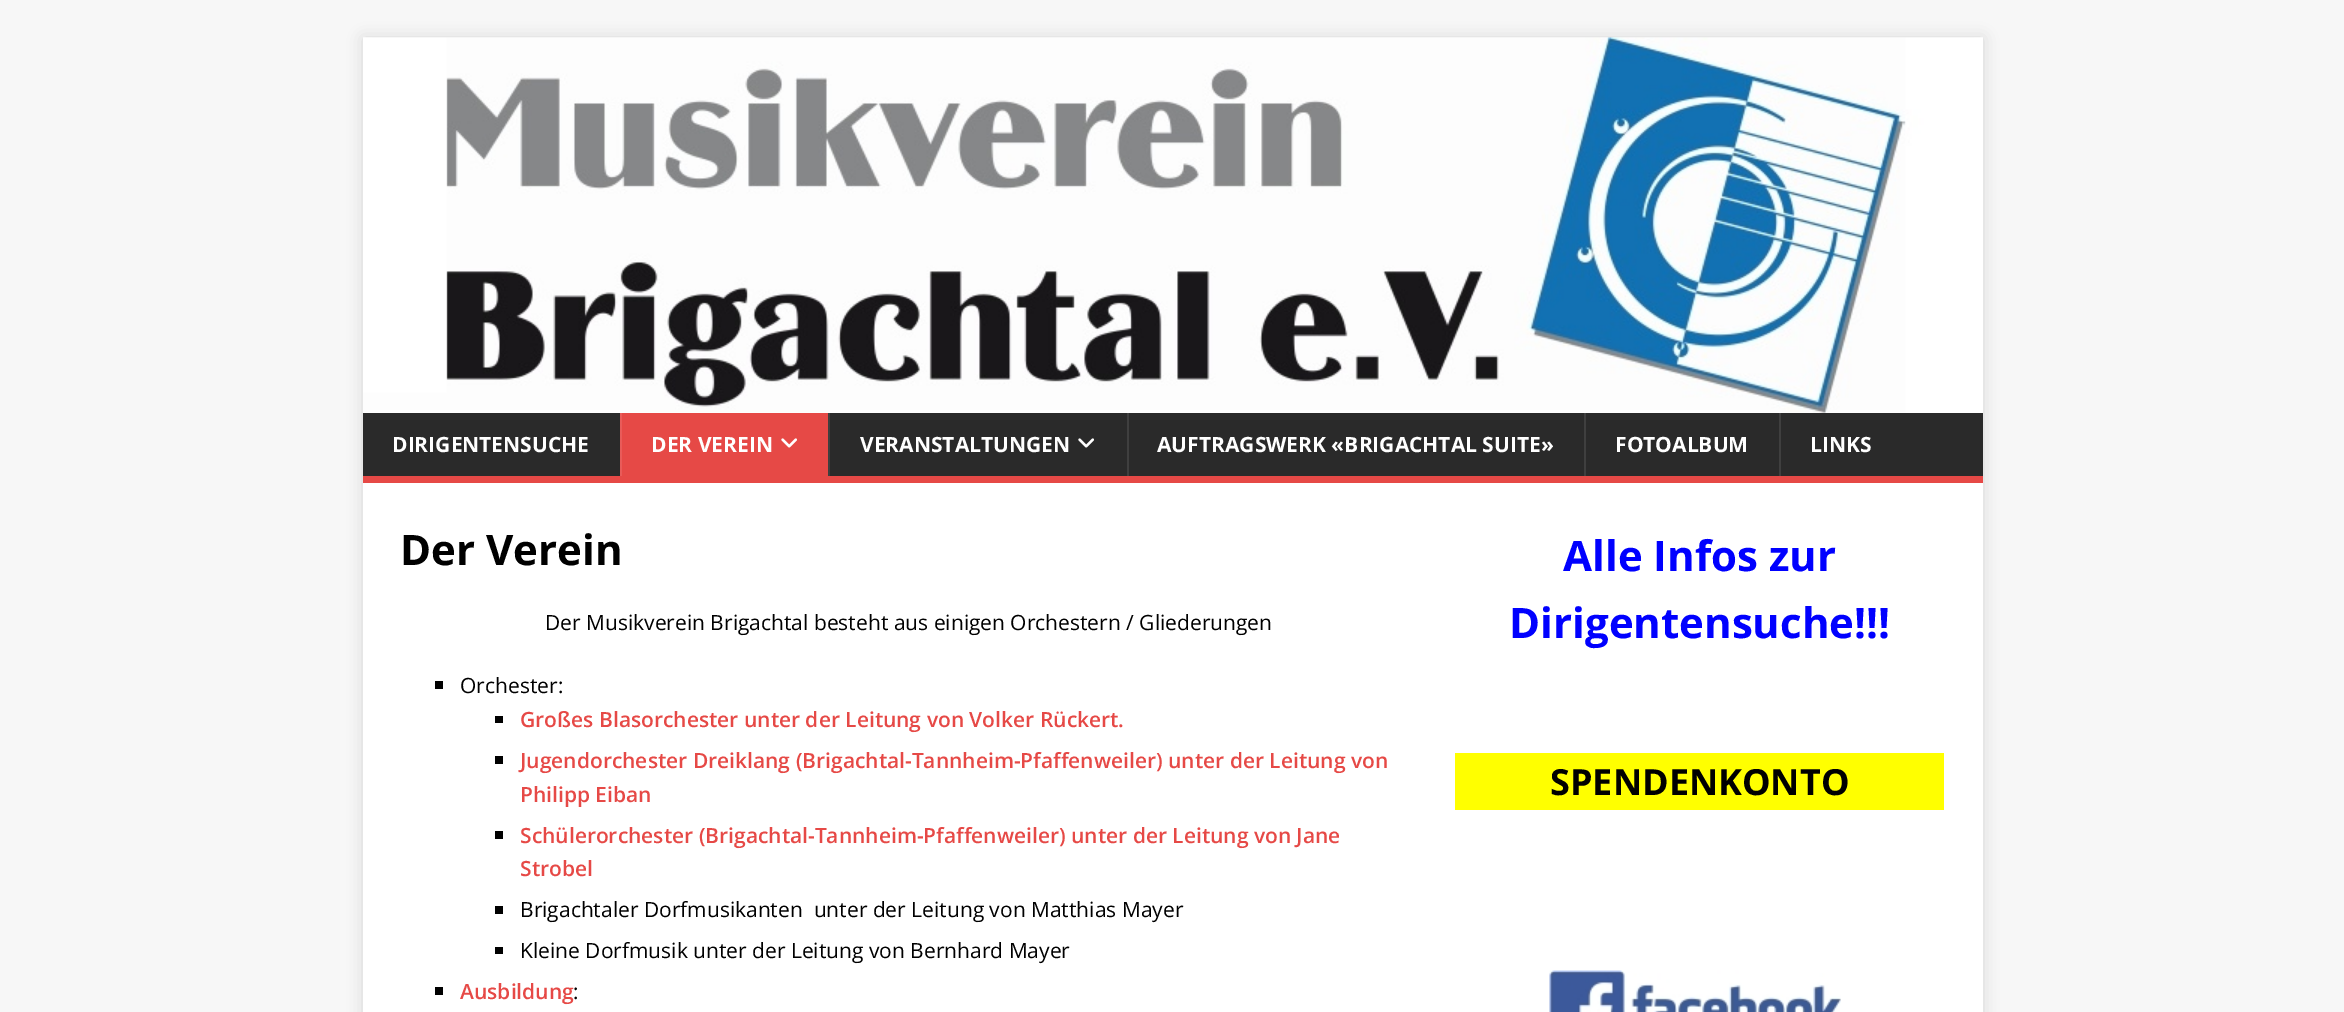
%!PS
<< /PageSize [2344 1012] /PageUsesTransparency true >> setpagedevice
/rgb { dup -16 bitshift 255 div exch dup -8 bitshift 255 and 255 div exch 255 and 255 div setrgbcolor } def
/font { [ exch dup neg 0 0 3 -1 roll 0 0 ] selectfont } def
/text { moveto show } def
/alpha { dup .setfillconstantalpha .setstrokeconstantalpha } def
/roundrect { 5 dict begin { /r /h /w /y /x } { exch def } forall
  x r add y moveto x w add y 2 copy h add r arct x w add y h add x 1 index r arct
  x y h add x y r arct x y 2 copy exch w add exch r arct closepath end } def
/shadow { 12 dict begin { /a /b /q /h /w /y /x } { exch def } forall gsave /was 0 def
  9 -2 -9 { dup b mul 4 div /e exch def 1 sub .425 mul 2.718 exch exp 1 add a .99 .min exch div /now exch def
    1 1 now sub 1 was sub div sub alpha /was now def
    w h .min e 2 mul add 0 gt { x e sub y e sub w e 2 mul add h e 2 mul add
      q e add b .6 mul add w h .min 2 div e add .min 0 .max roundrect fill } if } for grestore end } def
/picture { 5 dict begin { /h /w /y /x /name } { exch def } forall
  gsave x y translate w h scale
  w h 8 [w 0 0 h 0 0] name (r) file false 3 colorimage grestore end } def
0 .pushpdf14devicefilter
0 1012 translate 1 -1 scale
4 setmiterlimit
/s1 { /OpenSans-Bold 21 font 16#FFFFFF rgb } def
/s2 { /OpenSans-Bold 42 font 16#000000 rgb } def
/s3 { /OpenSans-Regular 21 font 16#000000 rgb } def
/s4 { /OpenSans-SemiBold 21 font 16#E64946 rgb } def
/s5 { /OpenSans-Bold 42 font 16#0000FF rgb } def
/s6 { /OpenSans-Bold 36 font 16#000000 rgb } def
16#F7F7F7 rgb
0 0 2344 1012 rectfill
16#323232 rgb
363 38 1620 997 0 7.5 0.17 shadow
16#FFFFFF rgb
363 412 1620 1 rectfill
(pic1.raw) 363 37 1620 376 picture
16#2A2A2A rgb
363 413 1620 63 rectfill
16#E64946 rgb
363 476 1620 7 rectfill
s1
(DIRIGENTENSUCHE) 392 452 text
16#E64946 rgb
622 413 206 63 rectfill
16#E95B59 rgb
620 413 2 63 rectfill
s1
(DER VEREIN) 651 452 text
(pic2.raw) 781 438 16 10 picture
16#3F3F3F rgb
828 413 2 63 rectfill
s1
(VERANSTALTUNGEN) 860 452 text
(pic3.raw) 1078 438 16 10 picture
16#3F3F3F rgb
1127 413 2 63 rectfill
s1
(AUFTRAGSWERK «BRIGACHTAL SUITE») 1157 452 text
16#3F3F3F rgb
1584 413 2 63 rectfill
s1
(FOTOALBUM) 1615 452 text
16#3F3F3F rgb
1779 413 2 63 rectfill
s1
(LINKS) 1810 452 text
363 483 1620 529 rectfill
s2
(Der Verein) 400 565 text
s3
(Der Musikverein Brigachtal besteht aus einigen Orchestern / Gliederungen) 545 630 text
435 681 8 8 rectfill
(Orchester:) 460 693 text
495 716 8 7 rectfill
s4
(Großes Blasorchester unter der Leitung von Volker Rückert.) 520 727 text
16#000000 rgb
495 756 8 8 rectfill
s4
(Jugendorchester Dreiklang \(Brigachtal-Tannheim-Pfaffenweiler\) unter der Leitung von) 520 768 text
(Philipp Eiban) 520 802 text
16#000000 rgb
495 831 8 8 rectfill
s4
(Schülerorchester \(Brigachtal-Tannheim-Pfaffenweiler\) unter der Leitung von Jane) 520 843 text
(Strobel) 520 876 text
16#000000 rgb
495 906 8 8 rectfill
s3
(Brigachtaler Dorfmusikanten  unter der Leitung von Matthias Mayer) 520 917 text
495 947 8 7 rectfill
(Kleine Dorfmusik unter der Leitung von Bernhard Mayer) 520 958 text
435 987 8 8 rectfill
s4
(Ausbildung) 460 999 text
s3
(:) 573 999 text
s5
(Alle Infos zur) 1563 571 text
(Dirigentensuche!!!) 1509 638 text
16#FFFF00 rgb
1455 753 489 57 rectfill
s6
(SPENDENKONTO) 1550 795 text
(pic4.raw) 1549 970 292 42 picture
.poppdf14devicefilter showpage
